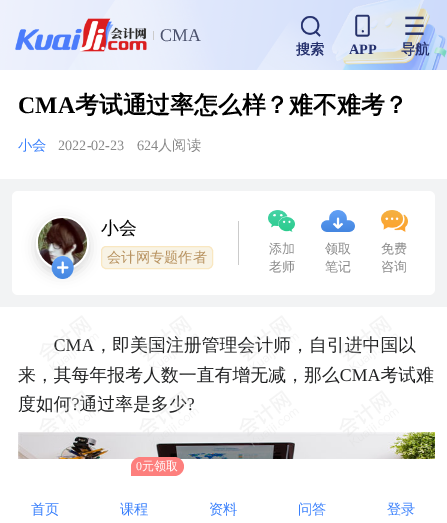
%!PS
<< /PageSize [447 523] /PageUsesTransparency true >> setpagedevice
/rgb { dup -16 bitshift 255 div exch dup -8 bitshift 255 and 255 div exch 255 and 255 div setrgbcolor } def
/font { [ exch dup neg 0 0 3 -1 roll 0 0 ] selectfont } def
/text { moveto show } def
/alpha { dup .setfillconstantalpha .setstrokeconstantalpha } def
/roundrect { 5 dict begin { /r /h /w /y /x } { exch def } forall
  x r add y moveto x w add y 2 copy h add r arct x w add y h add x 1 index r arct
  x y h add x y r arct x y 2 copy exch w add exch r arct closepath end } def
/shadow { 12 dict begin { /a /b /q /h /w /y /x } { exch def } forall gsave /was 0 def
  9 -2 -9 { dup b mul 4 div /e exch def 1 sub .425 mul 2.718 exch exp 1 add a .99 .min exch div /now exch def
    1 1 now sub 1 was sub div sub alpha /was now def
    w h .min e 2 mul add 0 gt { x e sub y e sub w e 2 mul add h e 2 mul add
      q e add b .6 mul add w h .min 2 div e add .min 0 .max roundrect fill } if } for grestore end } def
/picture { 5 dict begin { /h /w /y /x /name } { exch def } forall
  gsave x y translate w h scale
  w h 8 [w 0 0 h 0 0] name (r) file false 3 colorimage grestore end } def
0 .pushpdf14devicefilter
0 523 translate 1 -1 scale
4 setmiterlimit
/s1 { /LiberationSerif-Regular 17.9 font 16#4A516C rgb } def
/s2 { /WenQuanYiZenHei-Bold 14.25 font 16#25316E rgb } def
/s3 { /LiberationSerif-Bold 14.25 font 16#25316E rgb } def
/s4 { /LiberationSerif-Bold 23.8 font 16#000000 rgb } def
/s5 { /WenQuanYiZenHei-Bold 23.8 font 16#000000 rgb } def
/s6 { /WenQuanYiZenHei-Medium 14.25 font 16#387FFC rgb } def
/s7 { /LiberationSerif-Regular 14.25 font 16#888888 rgb } def
/s8 { /WenQuanYiZenHei-Medium 14.25 font 16#888888 rgb } def
/s9 { /WenQuanYiZenHei-Medium 17.9 font 16#000000 rgb } def
/s10 { /WenQuanYiZenHei-Medium 14.25 font 16#B89361 rgb } def
/s11 { /WenQuanYiZenHei-Medium 13 font 16#888888 rgb } def
/s12 { /LiberationSerif-Regular 17.9 font 16#202122 rgb } def
/s13 { /WenQuanYiZenHei-Medium 17.9 font 16#202122 rgb } def
/s14 { /LiberationSerif-Regular 12 font 16#FFFFFF rgb } def
/s15 { /WenQuanYiZenHei-Medium 12 font 16#FFFFFF rgb } def
16#F2F3F4 rgb
0 0 447 523 rectfill
(pic1.raw) 0 0 447 70 picture
(pic2.raw) 15 18 132 34 picture
16#CBCBCB rgb
153 31 1 9 rectfill
s1
(CMA) 160 41 text
(pic3.raw) 301 16 20 21 picture
s2
(搜索) 296 54 text
(pic4.raw) 355 14 15 23 picture
s3
(APP) 349 54 text
(pic5.raw) 405 16 19 19 picture
s2
(导航) 401 54 text
16#FFFFFF rgb
0 70 447 109 rectfill
s4
(CMA) 18 113 text
s5
(考试通过率怎么样？难不难考？) 75 113 text
s6
(小会) 18 150 text
s7
(2022-02-23) 58 150 text
(624) 137 150 text
s8
(人阅读) 158 150 text
16#FFFFFF rgb
12 191 423 104 6 roundrect fill
16#F8F3E5 rgb
101.5 246.5 111 22 4.5 roundrect gsave fill grestore
16#F9E7C1 rgb
stroke
16#D4D4D4 rgb
36 220 53 54 26.5 6.5 1 shadow
16#DCDCDC rgb
37 217 51 52 25.5 roundrect gsave fill grestore
16#FFFFFF rgb
2 setlinewidth
stroke
(pic6.raw) 38 218 49 48 picture
(pic7.raw) 51 256 23 23 picture
s9
(小会) 101 234 text
s10
(会计网专题作者) 107 262 text
16#CBCBCB rgb
238 221 1 44 rectfill
(pic8.raw) 268 210 27 22 picture
s11
(添加) 269 253 text
(老师) 269 271 text
(pic9.raw) 321 210 34 22 picture
(领取) 325 253 text
(笔记) 325 271 text
(pic10.raw) 381 210 27 22 picture
(免费) 381 253 text
(咨询) 381 271 text
16#FFFFFF rgb
0 307 447 216 rectfill
s12
(CMA) 54 351 text
s13
(，即美国注册管理会计师，自引进中国以) 94 351 text
(来，其每年报考人数一直有增无减，那么) 18 381 text
s12
(CMA) 340 381 text
s13
(考试难) 380 381 text
(度如何) 18 410 text
s12
(?) 72 410 text
s13
(通过率是多少) 79 410 text
s12
(?) 187 410 text
(pic12.raw) 18 432 417 27 picture
(pic11.raw) 39 315 360 132 picture
s6
(首页) 31 514 text
16#FD7F7D rgb
140.5 457 moveto 174.5 457 lineto 179.5 457 184 461.5 184 466.5 curveto 184 471.5 179.5 476 174.5 476 curveto 131 476 lineto 131 466.5 lineto 131 461.5 135.5 457 140.5 457 curveto closepath fill
s14
(0) 136 470 text
s15
(元领取) 142 470 text
s6
(课程) 120 514 text
(资料) 209 514 text
(问答) 298 514 text
(登录) 387 514 text
.poppdf14devicefilter showpage
